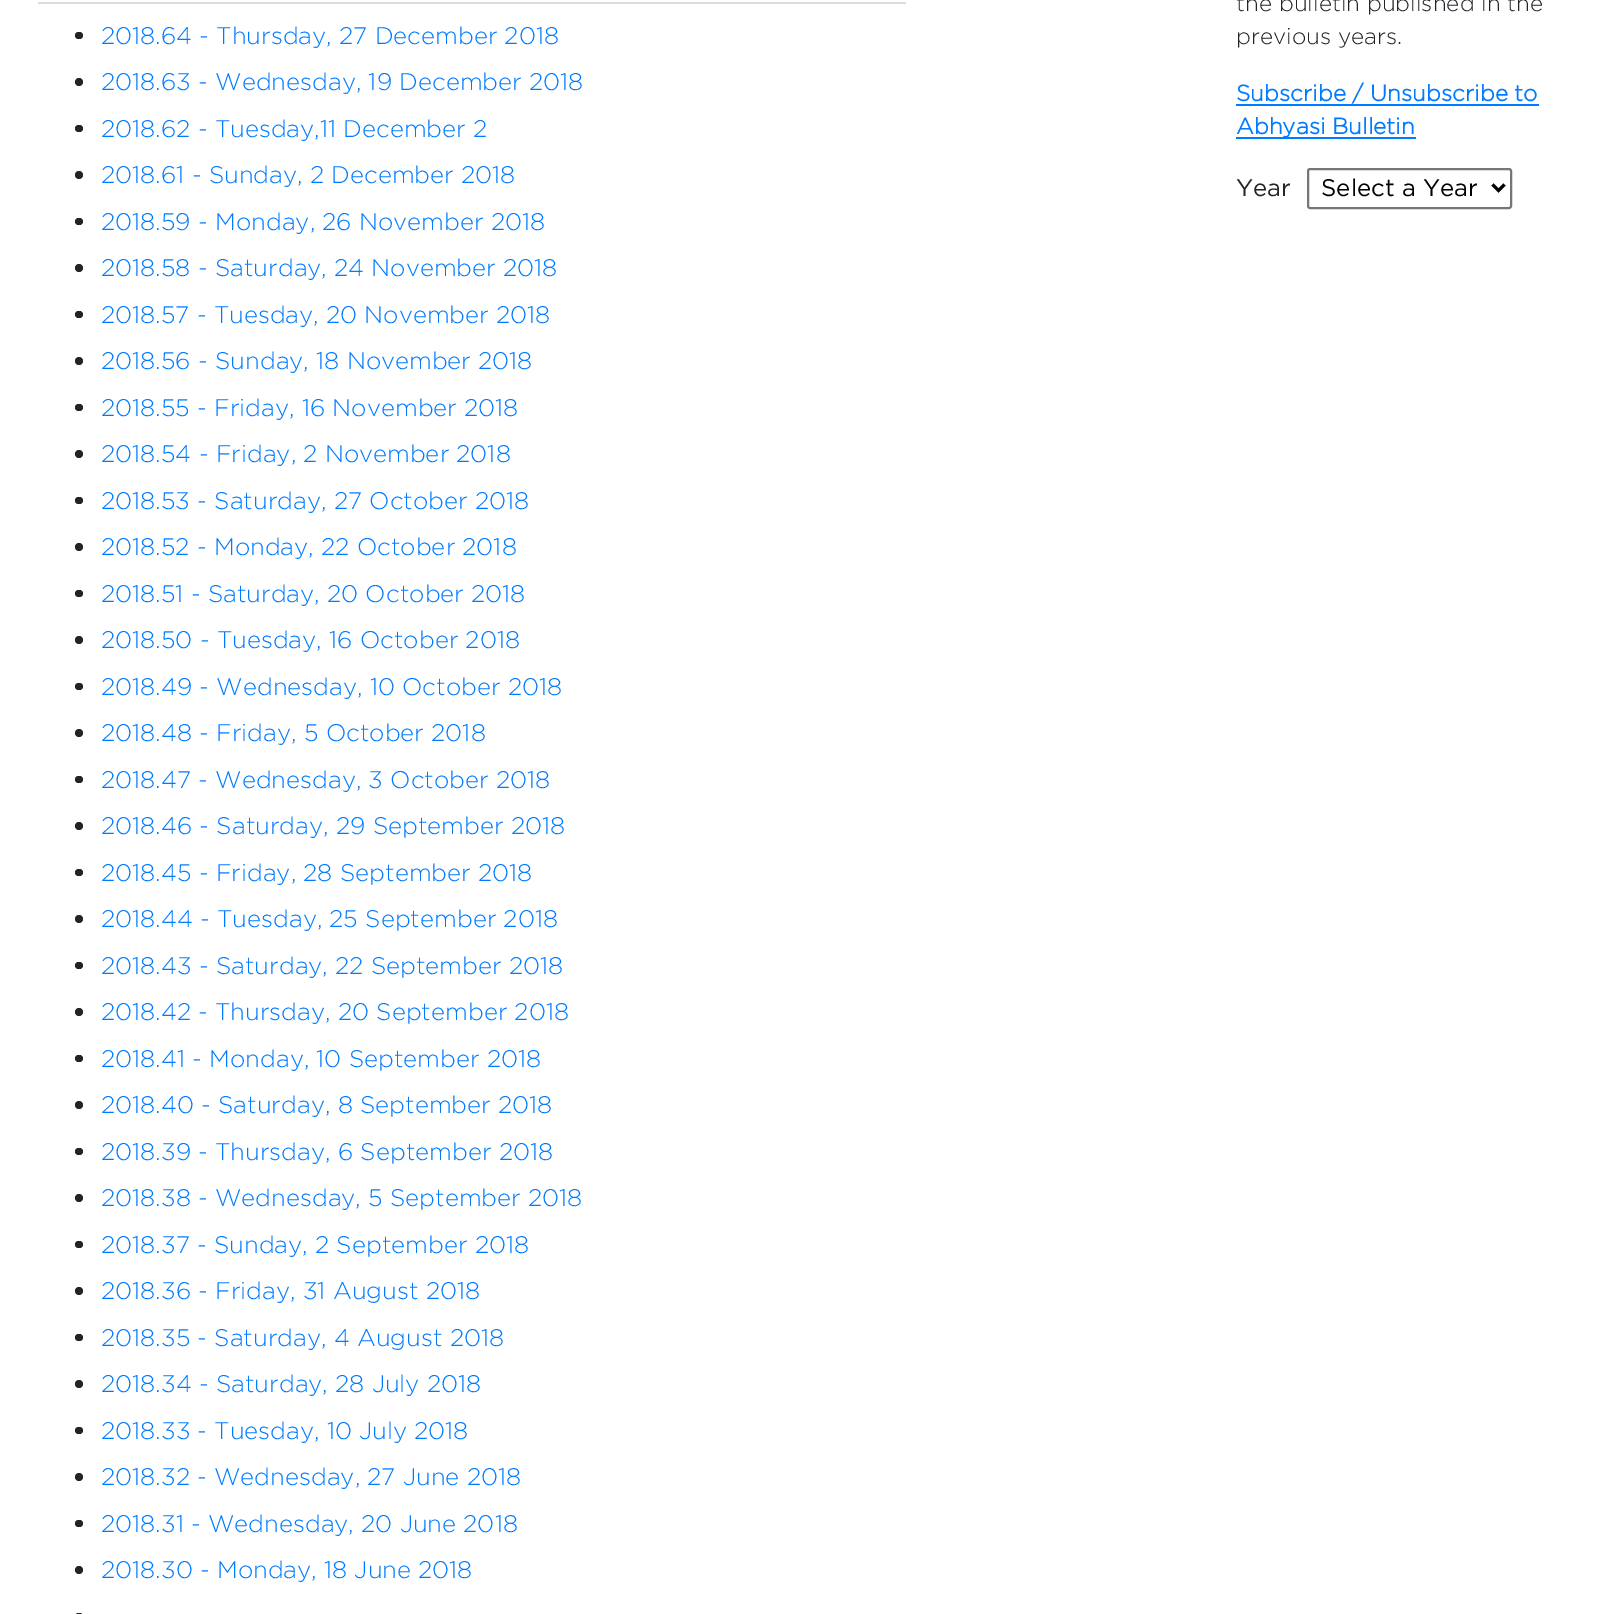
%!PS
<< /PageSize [1618 1614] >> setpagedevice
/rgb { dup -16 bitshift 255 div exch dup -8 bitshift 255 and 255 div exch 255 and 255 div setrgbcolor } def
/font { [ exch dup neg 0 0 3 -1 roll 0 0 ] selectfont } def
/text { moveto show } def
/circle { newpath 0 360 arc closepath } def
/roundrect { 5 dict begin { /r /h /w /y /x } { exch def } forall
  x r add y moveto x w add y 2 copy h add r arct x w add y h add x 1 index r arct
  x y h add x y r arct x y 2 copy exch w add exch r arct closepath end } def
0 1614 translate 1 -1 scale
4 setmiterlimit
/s1 { /Gotham-Light 24 font 16#007BFF rgb } def
/s2 { /Gotham-Light 22.5 font 16#212529 rgb } def
/s3 { /Gotham-Bold 22.5 font 16#007BFF rgb } def
/s4 { /Gotham-Regular 24 font 16#212529 rgb } def
/s5 { /Gotham-Regular 24 font 16#000000 rgb } def
16#FFFFFF rgb
0 0 1618 1614 rectfill
16#DDDDDD rgb
38 2 868 2 rectfill
16#212529 rgb
75 32 8 7 3.5 roundrect fill
s1
(2018.64 - Thursday, 27 December 2018) 101 44 text
16#212529 rgb
79 82 4 circle fill
s1
(2018.63 - Wednesday, 19 December 2018) 101 90 text
16#212529 rgb
75 125 8 7 3.5 roundrect fill
s1
(2018.62 - Tuesday,11 December 2) 101 137 text
16#212529 rgb
79 175 4 circle fill
s1
(2018.61 - Sunday, 2 December 2018) 101 183 text
16#212529 rgb
75 218 8 7 3.5 roundrect fill
s1
(2018.59 - Monday, 26 November 2018) 101 230 text
16#212529 rgb
79 268 4 circle fill
s1
(2018.58 - Saturday, 24 November 2018) 101 276 text
16#212529 rgb
75 311 8 7 3.5 roundrect fill
s1
(2018.57 - Tuesday, 20 November 2018) 101 323 text
16#212529 rgb
79 361 4 circle fill
s1
(2018.56 - Sunday, 18 November 2018) 101 369 text
16#212529 rgb
75 404 8 7 3.5 roundrect fill
s1
(2018.55 - Friday, 16 November 2018) 101 416 text
16#212529 rgb
79 454 4 circle fill
s1
(2018.54 - Friday, 2 November 2018) 101 462 text
16#212529 rgb
75 497 8 7 3.5 roundrect fill
s1
(2018.53 - Saturday, 27 October 2018) 101 509 text
16#212529 rgb
79 547 4 circle fill
s1
(2018.52 - Monday, 22 October 2018) 101 555 text
16#212529 rgb
75 590 8 7 3.5 roundrect fill
s1
(2018.51 - Saturday, 20 October 2018) 101 602 text
16#212529 rgb
79 640 4 circle fill
s1
(2018.50 - Tuesday, 16 October 2018) 101 648 text
16#212529 rgb
75 683 8 7 3.5 roundrect fill
s1
(2018.49 - Wednesday, 10 October 2018) 101 695 text
16#212529 rgb
79 733 4 circle fill
s1
(2018.48 - Friday, 5 October 2018) 101 741 text
16#212529 rgb
75 776 8 7 3.5 roundrect fill
s1
(2018.47 - Wednesday, 3 October 2018) 101 788 text
16#212529 rgb
79 826 4 circle fill
s1
(2018.46 - Saturday, 29 September 2018) 101 834 text
16#212529 rgb
75 869 8 7 3.5 roundrect fill
s1
(2018.45 - Friday, 28 September 2018) 101 881 text
16#212529 rgb
79 919 4 circle fill
s1
(2018.44 - Tuesday, 25 September 2018) 101 927 text
16#212529 rgb
75 962 8 7 3.5 roundrect fill
s1
(2018.43 - Saturday, 22 September 2018) 101 974 text
16#212529 rgb
79 1012 4 circle fill
s1
(2018.42 - Thursday, 20 September 2018) 101 1020 text
16#212529 rgb
75 1055 8 7 3.5 roundrect fill
s1
(2018.41 - Monday, 10 September 2018) 101 1067 text
16#212529 rgb
79 1105 4 circle fill
s1
(2018.40 - Saturday, 8 September 2018) 101 1113 text
16#212529 rgb
75 1148 8 7 3.5 roundrect fill
s1
(2018.39 - Thursday, 6 September 2018) 101 1160 text
16#212529 rgb
79 1198 4 circle fill
s1
(2018.38 - Wednesday, 5 September 2018) 101 1206 text
16#212529 rgb
75 1241 8 7 3.5 roundrect fill
s1
(2018.37 - Sunday, 2 September 2018) 101 1253 text
16#212529 rgb
79 1291 4 circle fill
s1
(2018.36 - Friday, 31 August 2018) 101 1299 text
16#212529 rgb
75 1334 8 7 3.5 roundrect fill
s1
(2018.35 - Saturday, 4 August 2018) 101 1346 text
16#212529 rgb
79 1384 4 circle fill
s1
(2018.34 - Saturday, 28 July 2018) 101 1392 text
16#212529 rgb
75 1427 8 7 3.5 roundrect fill
s1
(2018.33 - Tuesday, 10 July 2018) 101 1439 text
16#212529 rgb
79 1477 4 circle fill
s1
(2018.32 - Wednesday, 27 June 2018) 101 1485 text
16#212529 rgb
75 1520 8 7 3.5 roundrect fill
s1
(2018.31 - Wednesday, 20 June 2018) 101 1532 text
16#212529 rgb
79 1570 4 circle fill
s1
(2018.30 - Monday, 18 June 2018) 101 1578 text
16#212529 rgb
75 1613 8 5 3.5 roundrect fill
s2
(the bulletin published in the) 1236 11 text
(previous years.) 1236 44 text
s3
(Subscribe / Unsubscribe to) 1236 101 text
1236 104 303 2 rectfill
1236 137 180 2 rectfill
(Abhyasi Bulletin) 1236 134 text
s4
(Year) 1236 196 text
16#767676 rgb
2 setlinewidth
1308 169 203 39 2 roundrect stroke
16#000000 rgb
3 setlinewidth
1492.5 184.5 moveto 1498.5 190.5 lineto 1504.5 184.5 lineto stroke
(Select a Year) 1321 196 text
showpage
